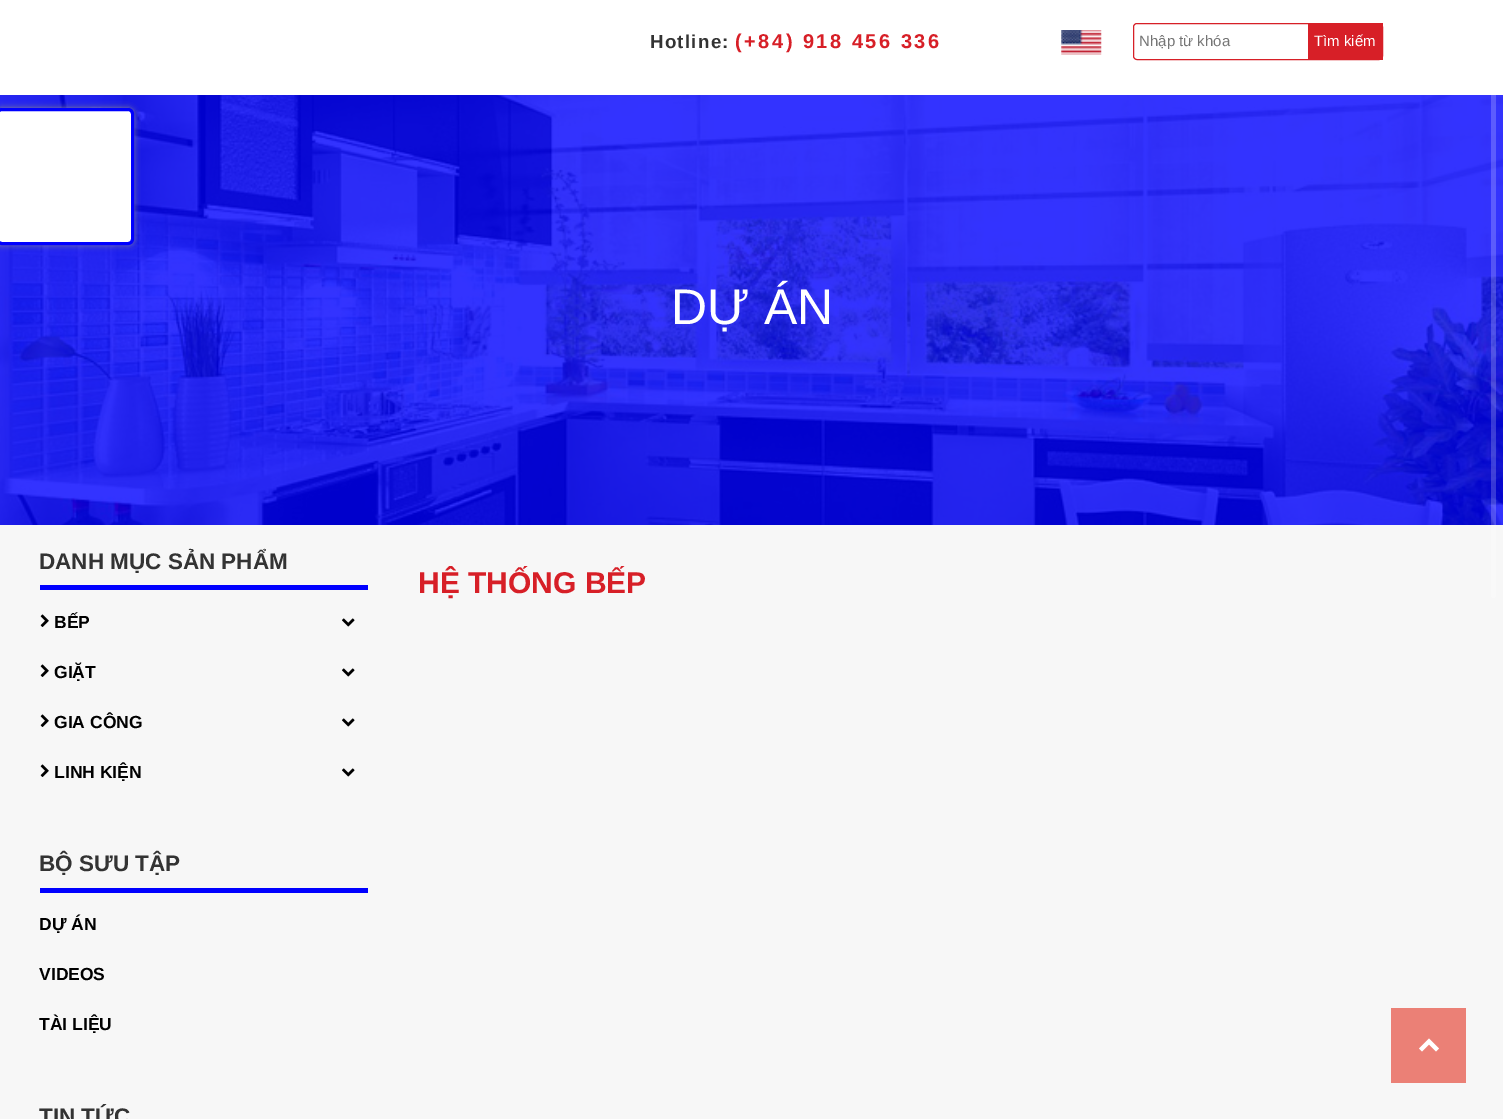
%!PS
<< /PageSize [1503 1119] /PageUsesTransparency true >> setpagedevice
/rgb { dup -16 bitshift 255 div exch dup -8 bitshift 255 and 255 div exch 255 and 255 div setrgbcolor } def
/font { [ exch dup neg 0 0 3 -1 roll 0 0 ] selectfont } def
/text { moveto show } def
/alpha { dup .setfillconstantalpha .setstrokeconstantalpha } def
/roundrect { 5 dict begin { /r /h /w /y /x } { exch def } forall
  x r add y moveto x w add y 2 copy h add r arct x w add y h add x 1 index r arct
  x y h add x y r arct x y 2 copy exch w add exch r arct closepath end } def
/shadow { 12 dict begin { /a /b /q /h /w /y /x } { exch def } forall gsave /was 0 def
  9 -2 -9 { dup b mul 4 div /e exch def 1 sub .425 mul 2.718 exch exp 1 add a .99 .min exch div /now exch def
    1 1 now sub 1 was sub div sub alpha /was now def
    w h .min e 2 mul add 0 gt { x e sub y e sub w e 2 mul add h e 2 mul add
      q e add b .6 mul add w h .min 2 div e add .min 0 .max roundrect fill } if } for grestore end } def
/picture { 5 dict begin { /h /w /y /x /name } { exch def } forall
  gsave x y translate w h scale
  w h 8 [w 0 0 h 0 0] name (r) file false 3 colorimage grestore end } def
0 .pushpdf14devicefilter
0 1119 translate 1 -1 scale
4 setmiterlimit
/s1 { /LiberationSans-Regular 15 font 16#757575 rgb } def
/s2 { /LiberationSans-Regular 15 font 16#FFFFFF rgb } def
/s3 { /LiberationSans-Regular 50 font 16#FFFFFF rgb } def
/s4 { /LiberationSans-Bold 22.5 font 16#333333 rgb } def
/s5 { /LiberationSans-Bold 17.5 font 16#000000 rgb } def
/s6 { /LiberationSans-Bold 30 font 16#D71F27 rgb } def
16#F7F7F7 rgb
0 0 1503 1119 rectfill
(pic2.raw) 0 95 1503 430 picture
0.2 alpha
16#FFFFFF rgb
1491 15 5 583 2.5 roundrect fill
1 alpha
0 0 1503 95 rectfill
/LiberationSans-Bold 18.75 font
16#333333 rgb
650 48 moveto 1.25 0 (Hotline:) ashow
/LiberationSans-Bold 20 font
16#D71F27 rgb
735 48 moveto 2.5 0 (\(+84\) 918 456 336) ashow
(pic1.raw) 1061 30 41 25 picture
1133.5 23.5 249 36 3.5 roundrect stroke
s1
(Nhập từ khóa) 1139 46 text
16#D71F27 rgb
1308 23 75 37 rectfill
s2
(Tìm kiếm) 1314 46 text
16#888888 rgb
-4 108 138 137 6 3 1 shadow
16#FFFFFF rgb
-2.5 109.5 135 134 4.5 roundrect gsave fill grestore
16#0000FF rgb
3 setlinewidth
stroke
s3
(DỰ ÁN) 671 324 text
16#0000FF rgb
40 585 328 5 rectfill
s4
(DANH MỤC SẢN PHẨM) 39 569 text
(pic3.raw) 40 614 9 13 picture
s5
(BẾP) 54 628 text
(pic4.raw) 342 618 13 9 picture
(pic3.raw) 40 664 9 13 picture
(GIẶT) 54 678 text
(pic4.raw) 342 668 13 9 picture
(pic3.raw) 40 714 9 13 picture
(GIA CÔNG) 54 728 text
(pic4.raw) 342 718 13 9 picture
(pic3.raw) 40 764 9 13 picture
(LINH KIỆN) 54 778 text
(pic4.raw) 342 768 13 9 picture
16#0000FF rgb
40 888 328 5 rectfill
s4
(BỘ SƯU TẬP) 39 871 text
s5
(DỰ ÁN) 39 930 text
(VIDEOS) 39 980 text
(TÀI LIỆU) 39 1030 text
s4
(TIN TỨC) 39 1124 text
s6
(HỆ THỐNG BẾP) 418 593 text
0.8 alpha
16#E86256 rgb
1391 1008 75 75 rectfill
1 alpha
16#FFFFFF rgb
1429 1038.5 moveto 1439 1048.5 lineto 1436 1051.5 lineto 1429 1044.5 lineto 1422 1051.5 lineto 1419 1048.5 lineto closepath fill
.poppdf14devicefilter showpage
